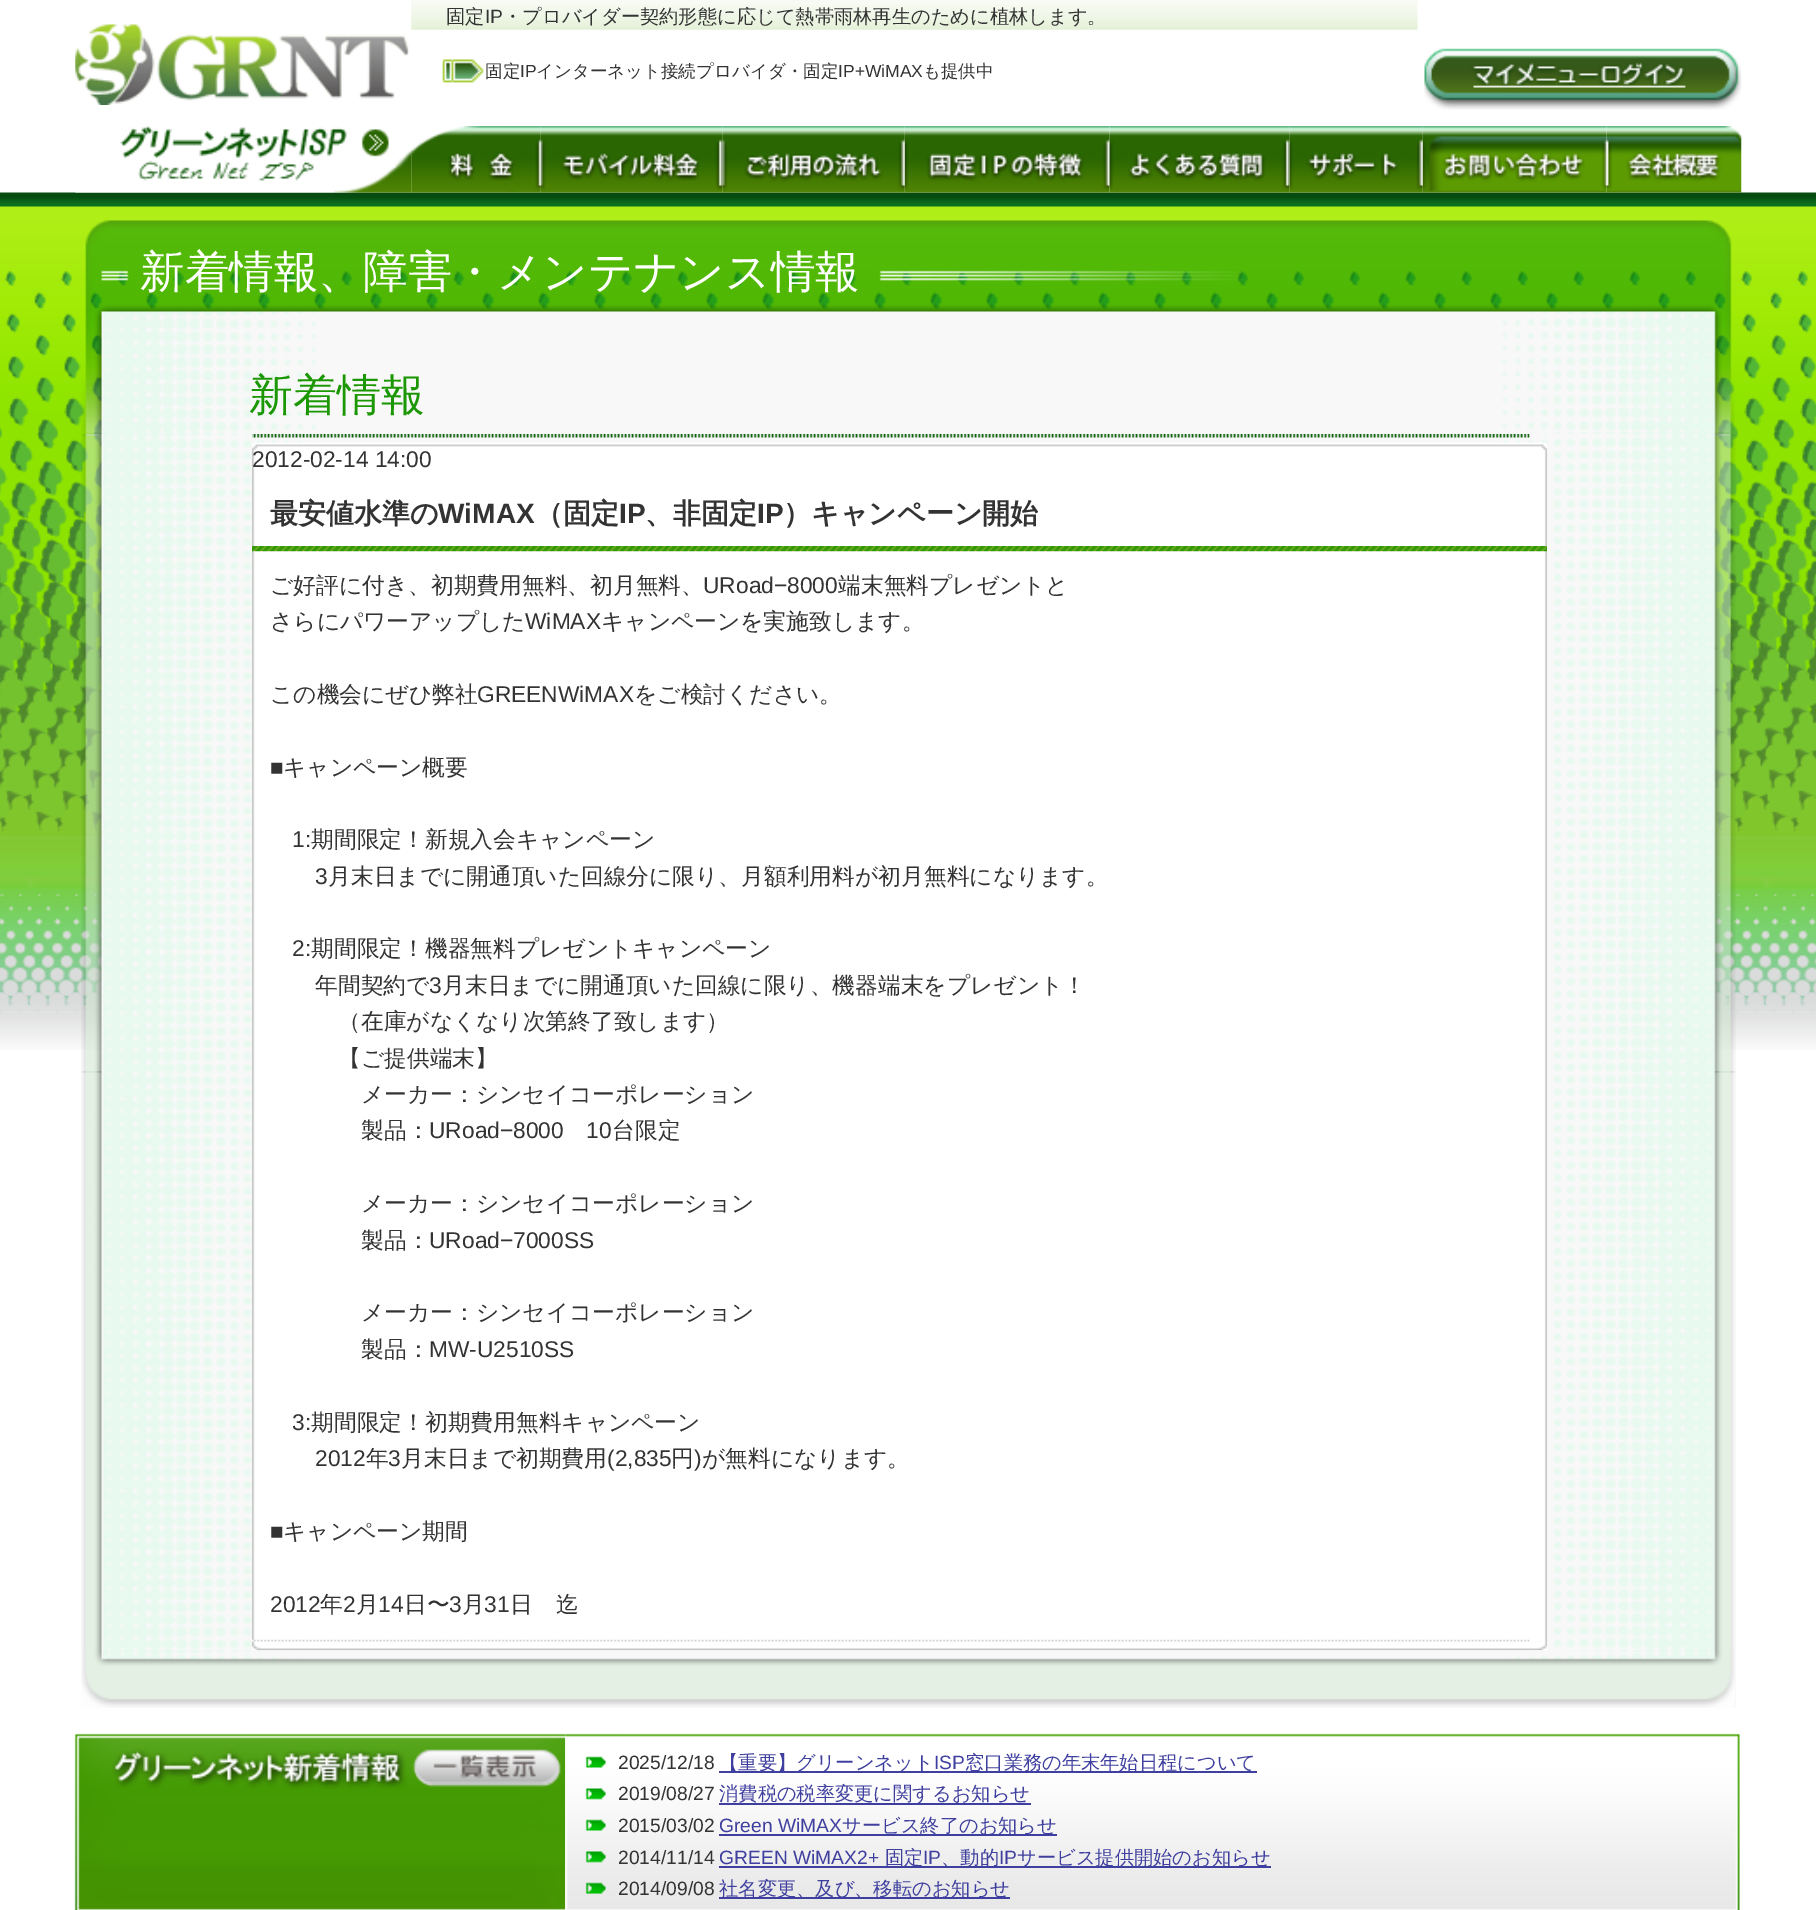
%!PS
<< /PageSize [1816 1910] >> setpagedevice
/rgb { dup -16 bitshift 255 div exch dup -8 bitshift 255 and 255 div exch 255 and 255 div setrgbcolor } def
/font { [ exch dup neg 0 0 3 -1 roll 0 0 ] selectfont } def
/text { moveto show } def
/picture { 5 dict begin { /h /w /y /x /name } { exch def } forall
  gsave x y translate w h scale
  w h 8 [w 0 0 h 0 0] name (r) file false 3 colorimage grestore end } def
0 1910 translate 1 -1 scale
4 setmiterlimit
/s1 { /WenQuanYiZenHei-Medium 19.25 font 16#333333 rgb } def
/s2 { /LiberationSans-Regular 19.25 font 16#333333 rgb } def
/s3 { /WenQuanYiZenHei-Medium 17.5 font 16#333333 rgb } def
/s4 { /LiberationSans-Regular 17.5 font 16#333333 rgb } def
/s5 { /WenQuanYiZenHei-Medium 44.6 font 16#FFFFFF rgb } def
/s6 { /WenQuanYiZenHei-Medium 44 font 16#1C9704 rgb } def
/s7 { /LiberationSans-Regular 22.75 font 16#333333 rgb } def
/s8 { /WenQuanYiZenHei-Bold 28 font 16#333333 rgb } def
/s9 { /LiberationSans-Bold 28 font 16#333333 rgb } def
/s10 { /WenQuanYiZenHei-Medium 22.75 font 16#333333 rgb } def
/s11 { /WenQuanYiZenHei-Medium 19.25 font 16#3F3F9F rgb } def
/s12 { /LiberationSans-Regular 19.25 font 16#3F3F9F rgb } def
16#FFFFFF rgb
0 0 1816 1910 rectfill
(pic1.raw) 75 24 334 81 picture
(pic2.raw) 411 0 1007 30 picture
s1
(固定) 446 23 text
s2
(IP) 485 23 text
s1
(・プロバイダー契約形態に応じて熱帯雨林再生のために植林します。) 503 23 text
(pic3.raw) 442 59 42 24 picture
s3
(固定) 485 77 text
s4
(IP) 520 77 text
s3
(インターネット接続プロバイダ・固定) 536 77 text
s4
(IP+WiMAX) 838 77 text
s3
(も提供中) 923 77 text
(pic4.raw) 1424 48 318 62 picture
(pic14.raw) 0 192 1816 858 picture
(pic5.raw) 75 126 337 67 picture
(pic6.raw) 411 126 130 67 picture
(pic7.raw) 540 126 183 67 picture
(pic8.raw) 722 126 183 67 picture
(pic9.raw) 904 126 206 67 picture
(pic10.raw) 1109 126 181 67 picture
(pic11.raw) 1289 126 134 67 picture
(pic12.raw) 1422 126 185 67 picture
(pic13.raw) 1606 126 136 67 picture
(pic15.raw) 81 220 1654 216 picture
(pic16.raw) 101 270 28 11 picture
s5
(新着情報、障害・メンテナンス情報) 140 287 text
(pic17.raw) 879 270 365 11 picture
s6
(新着情報) 249 410 text
(pic18.raw) 81 434 1655 639 picture
(pic19.raw) 252 434 1278 4 picture
(pic25.raw) 81 1071 1655 637 picture
(pic20.raw) 252 1641 1295 10 picture
(pic21.raw) 252 442 1295 1200 picture
(pic22.raw) 252 442 1295 9 picture
s7
(2012-02-14 14:00) 252 467 text
(pic23.raw) 252 546 1295 6 picture
s8
(最安値水準の) 270 523 text
s9
(WiMAX) 438 523 text
s8
(（固定) 535 523 text
s9
(IP) 619 523 text
s8
(、非固定) 645 523 text
s9
(IP) 757 523 text
s8
(）キャンペーン開始) 783 523 text
(pic24.raw) 252 1639 1278 3 picture
s10
(ご好評に付き、初期費用無料、初月無料、) 270 593 text
s7
(URoad−8000) 703 593 text
s10
(端末無料プレゼントと) 838 593 text
(さらにパワーアップした) 270 629 text
s7
(WiMAX) 525 629 text
s10
(キャンペーンを実施致します。) 601 629 text
(この機会にぜひ弊社) 270 702 text
s7
(GREENWiMAX) 477 702 text
s10
(をご検討ください。) 634 702 text
s7
(■) 270 775 text
s10
(キャンペーン概要) 283 775 text
s7
(1:) 292 847 text
s10
(期間限定！新規入会キャンペーン) 311 847 text
s7
(3) 315 884 text
s10
(月末日までに開通頂いた回線分に限り、月額利用料が初月無料になります。) 328 884 text
s7
(2:) 292 956 text
s10
(期間限定！機器無料プレゼントキャンペーン) 311 956 text
(年間契約で) 315 993 text
s7
(3) 429 993 text
s10
(月末日までに開通頂いた回線に限り、機器端末をプレゼント！) 442 993 text
(（在庫がなくなり次第終了致します）) 338 1029 text
(【ご提供端末】) 338 1066 text
(メーカー：シンセイコーポレーション) 361 1102 text
(製品：) 361 1138 text
s7
(URoad−8000) 429 1138 text
(10) 586 1138 text
s10
(台限定) 612 1138 text
(メーカー：シンセイコーポレーション) 361 1211 text
(製品：) 361 1248 text
s7
(URoad−7000SS) 429 1248 text
s10
(メーカー：シンセイコーポレーション) 361 1320 text
(製品：) 361 1357 text
s7
(MW-U2510SS) 429 1357 text
(3:) 292 1430 text
s10
(期間限定！初期費用無料キャンペーン) 311 1430 text
s7
(2012) 315 1466 text
s10
(年) 366 1466 text
s7
(3) 388 1466 text
s10
(月末日まで初期費用) 401 1466 text
s7
(\(2,835) 607 1466 text
s10
(円) 671 1466 text
s7
(\)) 694 1466 text
s10
(が無料になります。) 702 1466 text
s7
(■) 270 1539 text
s10
(キャンペーン期間) 283 1539 text
s7
(2012) 270 1612 text
s10
(年) 320 1612 text
s7
(2) 343 1612 text
s10
(月) 356 1612 text
s7
(14) 378 1612 text
s10
(日〜) 404 1612 text
s7
(3) 449 1612 text
s10
(月) 462 1612 text
s7
(31) 484 1612 text
s10
(日　迄) 510 1612 text
(pic26.raw) 81 1650 1654 58 picture
(pic27.raw) 74 1733 492 177 picture
(pic28.raw) 412 1749 147 36 picture
(pic29.raw) 565 1733 1175 177 picture
(pic30.raw) 585 1756 21 12 picture
s2
(2025/12/18) 618 1769 text
16#3F3F9F rgb
719 1771 538 2 rectfill
s11
(【重要】グリーンネット) 719 1769 text
s12
(ISP) 934 1769 text
s11
(窓口業務の年末年始日程について) 965 1769 text
(pic31.raw) 585 1788 21 12 picture
s2
(2019/08/27) 618 1800 text
16#3F3F9F rgb
719 1803 312 2 rectfill
s11
(消費税の税率変更に関するお知らせ) 719 1800 text
(pic32.raw) 585 1819 21 12 picture
s2
(2015/03/02) 618 1832 text
s12
(Green WiMAX) 719 1832 text
719 1834 338 2 rectfill
s11
(サービス終了のお知らせ) 842 1832 text
(pic33.raw) 585 1851 21 12 picture
s2
(2014/11/14) 618 1864 text
s12
(GREEN WiMAX2+) 719 1864 text
719 1866 552 2 rectfill
s11
(固定) 885 1864 text
s12
(IP) 923 1864 text
s11
(、動的) 941 1864 text
s12
(IP) 999 1864 text
s11
(サービス提供開始のお知らせ) 1017 1864 text
(pic34.raw) 585 1882 21 12 picture
s2
(2014/09/08) 618 1895 text
16#3F3F9F rgb
719 1897 291 2 rectfill
s11
(社名変更、及び、移転のお知らせ) 719 1895 text
showpage
